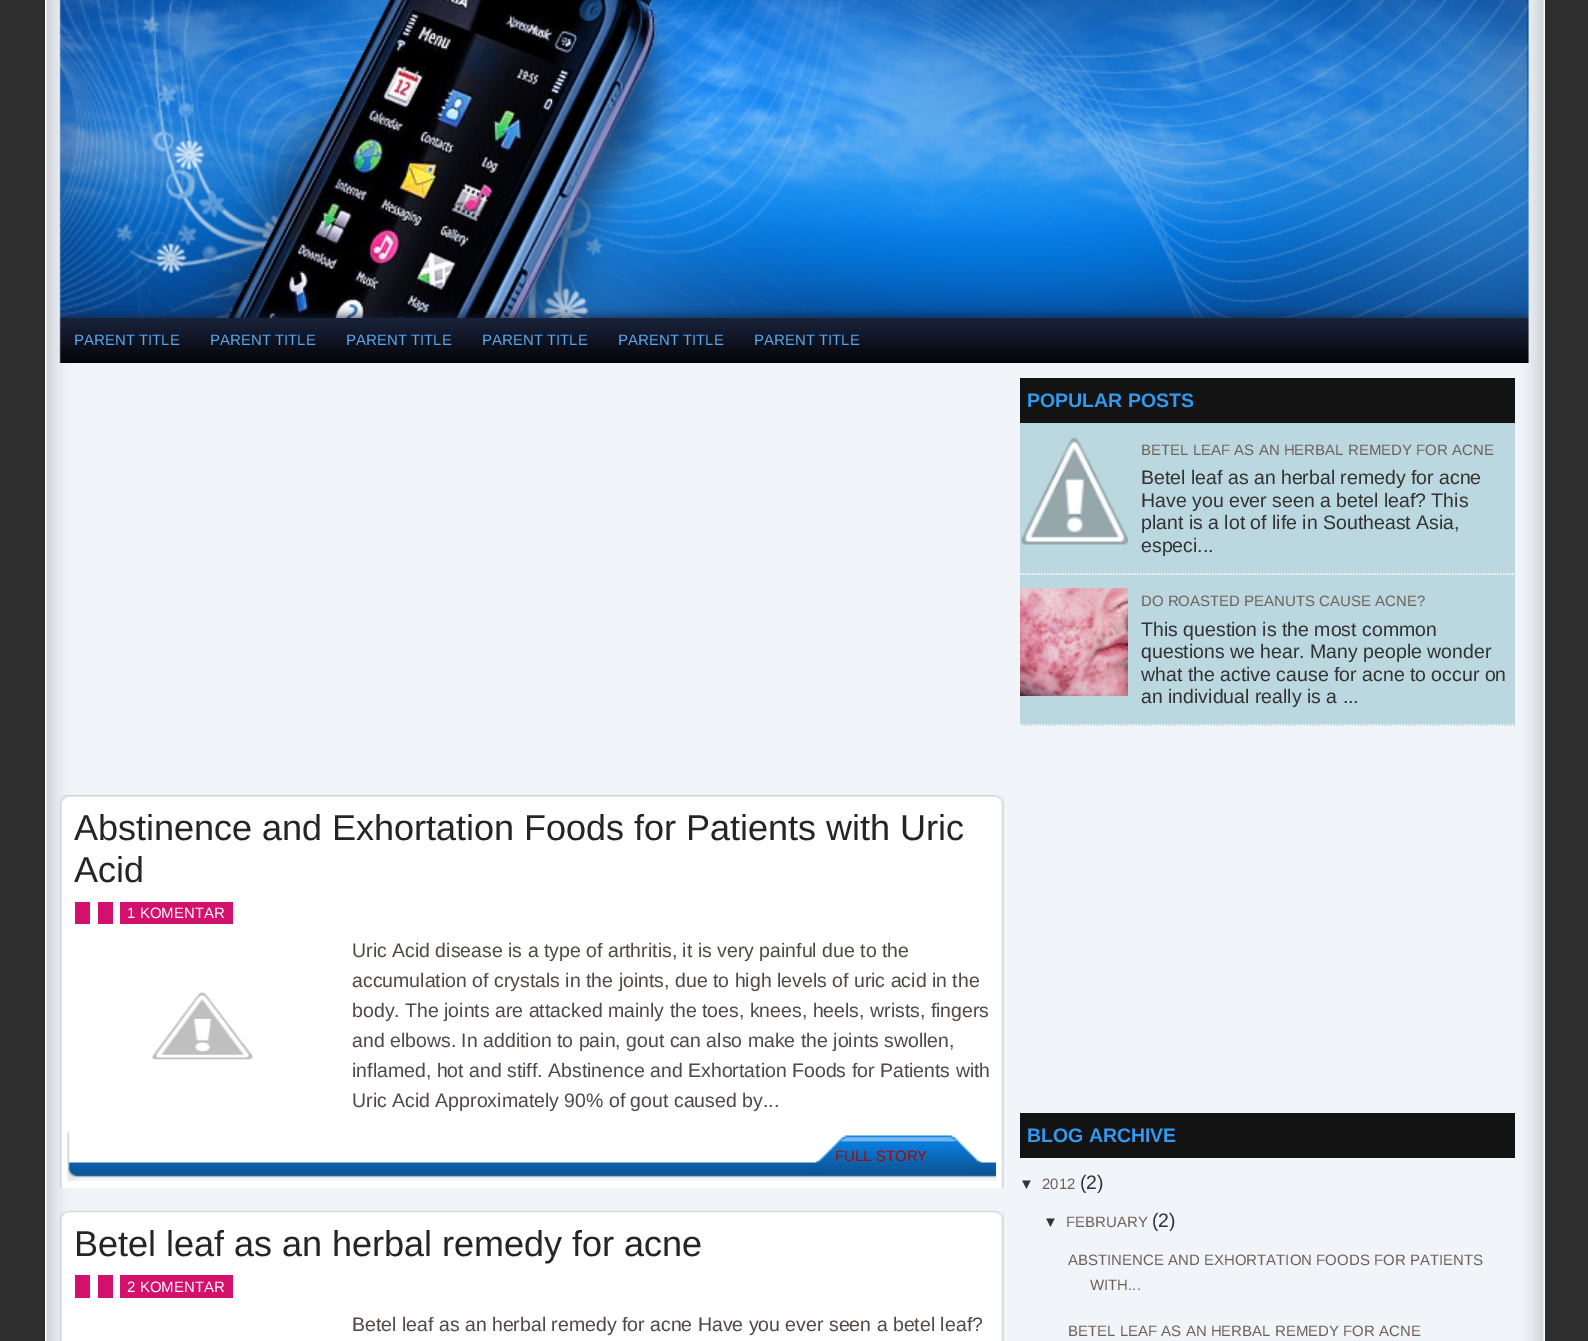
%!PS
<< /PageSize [1588 1341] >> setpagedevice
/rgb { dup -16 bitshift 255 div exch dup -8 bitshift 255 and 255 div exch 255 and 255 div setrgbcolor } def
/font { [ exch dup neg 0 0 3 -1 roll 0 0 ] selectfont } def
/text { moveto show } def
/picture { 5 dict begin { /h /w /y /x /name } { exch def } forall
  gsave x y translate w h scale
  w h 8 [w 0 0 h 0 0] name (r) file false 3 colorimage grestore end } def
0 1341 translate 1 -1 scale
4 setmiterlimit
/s1 { /LiberationSans-Regular 15 font 16#59A8F1 rgb } def
/s2 { /LiberationSans-Regular 36 font 16#252525 rgb } def
/s3 { /LiberationSans-Regular 15 font 16#FFFFFF rgb } def
/s4 { /LiberationSans-Regular 19.5 font 16#504945 rgb } def
/s5 { /LiberationSans-Regular 15 font 16#AC0604 rgb } def
/s6 { /LiberationSans-Bold 19.5 font 16#3299F0 rgb } def
/s7 { /LiberationSans-Regular 15 font 16#6F615A rgb } def
/s8 { /LiberationSans-Regular 19.5 font 16#333333 rgb } def
/s9 { /LiberationSans-Regular 15 font 16#333333 rgb } def
16#2E2E2E rgb
0 0 1588 1341 rectfill
(pic1.raw) 45 0 1500 318 picture
(pic2.raw) 45 318 1500 45 picture
s1
(PARENT TITLE) 74 345 text
(PARENT TITLE) 210 345 text
(PARENT TITLE) 346 345 text
(PARENT TITLE) 482 345 text
(PARENT TITLE) 618 345 text
(PARENT TITLE) 754 345 text
(pic3.raw) 45 363 1500 978 picture
(pic4.raw) 60 795 944 393 picture
(pic5.raw) 60 795 944 12 picture
s2
(Abstinence and Exhortation Foods for Patients with Uric) 74 840 text
(Acid) 74 882 text
16#D3116D rgb
75 902 15 22 rectfill
98 902 15 22 rectfill
120 902 113 22 rectfill
s3
(1 KOMENTAR) 127 918 text
(pic6.raw) 152 992 101 68 picture
s4
(Uric Acid disease is a type of arthritis, it is very painful due to the) 352 957 text
(accumulation of crystals in the joints, due to high levels of uric acid in the) 352 987 text
(body. The joints are attacked mainly the toes, knees, heels, wrists, fingers) 352 1017 text
(and elbows. In addition to pain, gout can also make the joints swollen,) 352 1047 text
(inflamed, hot and stiff. Abstinence and Exhortation Foods for Patients with) 352 1077 text
(Uric Acid Approximately 90% of gout caused by...) 352 1107 text
16#F7F7F7 rgb
68 1180 928 1 rectfill
(pic7.raw) 67 1132 929 49 picture
s5
(FULL STORY) 835 1161 text
(pic8.raw) 60 1210 944 131 picture
(pic9.raw) 60 1210 944 12 picture
s2
(Betel leaf as an herbal remedy for acne) 74 1256 text
16#D3116D rgb
75 1275 15 23 rectfill
98 1275 15 23 rectfill
120 1275 113 23 rectfill
s3
(2 KOMENTAR) 127 1292 text
s4
(Betel leaf as an herbal remedy for acne Have you ever seen a betel leaf?) 352 1331 text
16#141313 rgb
1020 378 495 45 rectfill
s6
(POPULAR POSTS) 1027 407 text
16#BBD7E0 rgb
1020 423 495 303 rectfill
16#FFFFFF rgb
1.5 setlinewidth
[1.5 1.5] 0 setdash
1020 574 moveto 1515 574 lineto stroke
(pic10.raw) 1021 437 107 108 picture
s7
(BETEL LEAF AS AN HERBAL REMEDY FOR ACNE) 1141 455 text
s8
(Betel leaf as an herbal remedy for acne) 1141 484 text
(Have you ever seen a betel leaf? This) 1141 507 text
(plant is a lot of life in Southeast Asia,) 1141 529 text
(especi...) 1141 552 text
16#FFFFFF rgb
1020 725 moveto 1515 725 lineto stroke
(pic11.raw) 1020 588 108 108 picture
s7
(DO ROASTED PEANUTS CAUSE ACNE?) 1141 606 text
s8
(This question is the most common) 1141 636 text
(questions we hear. Many people wonder) 1141 658 text
(what the active cause for acne to occur on) 1141 681 text
(an individual really is a ...) 1141 703 text
16#141313 rgb
1020 1113 495 45 rectfill
s6
(BLOG ARCHIVE) 1027 1142 text
s9
(▼) 1019 1189 text
s7
(2012) 1042 1189 text
s8
(\(2\)) 1080 1189 text
s9
(▼) 1043 1227 text
s7
(FEBRUARY) 1066 1227 text
s8
(\(2\)) 1152 1227 text
s7
(ABSTINENCE AND EXHORTATION FOODS FOR PATIENTS) 1068 1265 text
(WITH...) 1090 1290 text
(BETEL LEAF AS AN HERBAL REMEDY FOR ACNE) 1068 1336 text
showpage
